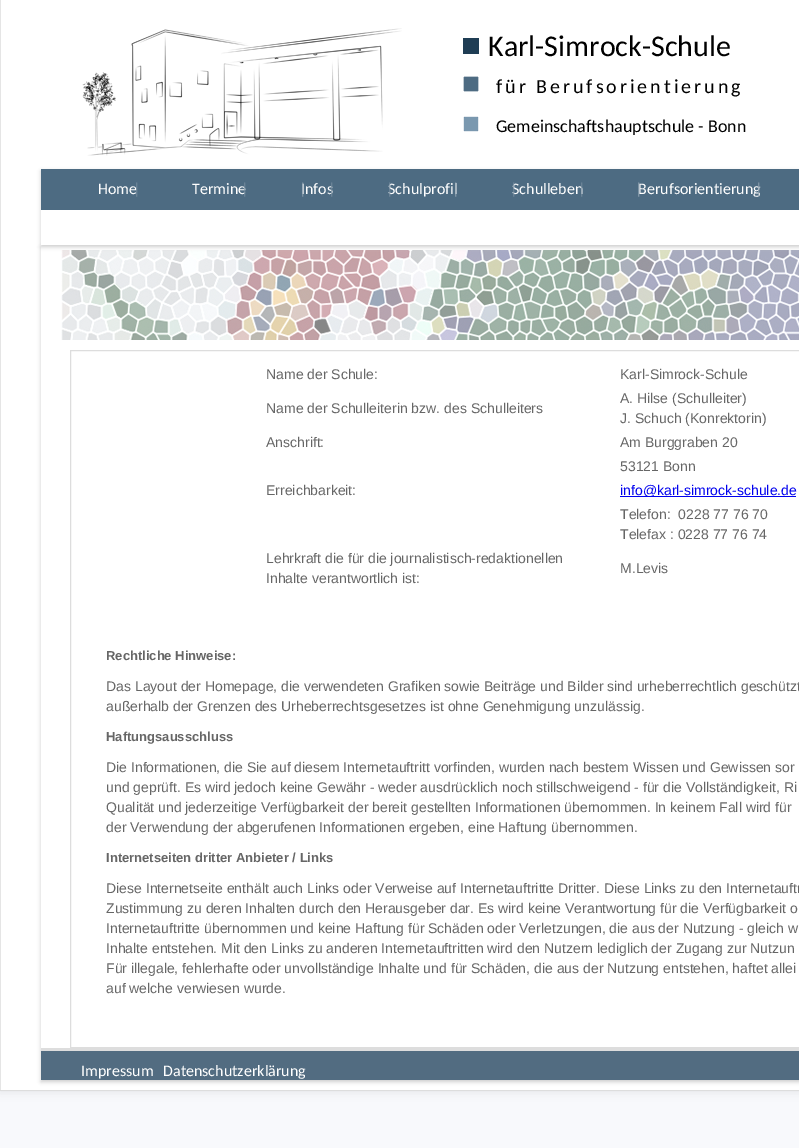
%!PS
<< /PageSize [799 1148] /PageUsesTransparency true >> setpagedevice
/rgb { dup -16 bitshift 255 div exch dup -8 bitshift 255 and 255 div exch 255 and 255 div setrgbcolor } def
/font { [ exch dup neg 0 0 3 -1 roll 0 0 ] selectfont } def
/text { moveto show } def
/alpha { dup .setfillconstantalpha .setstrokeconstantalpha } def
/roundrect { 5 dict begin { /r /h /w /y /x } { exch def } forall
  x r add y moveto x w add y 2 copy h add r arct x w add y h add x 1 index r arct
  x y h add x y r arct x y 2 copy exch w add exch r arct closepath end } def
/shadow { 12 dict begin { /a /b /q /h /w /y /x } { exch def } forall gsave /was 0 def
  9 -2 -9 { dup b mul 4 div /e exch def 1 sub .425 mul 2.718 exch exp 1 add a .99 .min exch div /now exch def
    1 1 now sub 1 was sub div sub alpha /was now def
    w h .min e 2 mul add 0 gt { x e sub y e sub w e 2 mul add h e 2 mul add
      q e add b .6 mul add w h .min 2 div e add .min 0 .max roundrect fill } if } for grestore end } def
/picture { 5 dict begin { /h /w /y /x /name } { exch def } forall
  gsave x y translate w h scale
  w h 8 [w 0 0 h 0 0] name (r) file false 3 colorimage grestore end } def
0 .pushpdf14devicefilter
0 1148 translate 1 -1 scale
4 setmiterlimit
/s1 { /Carlito-Regular 30 font 16#000000 rgb } def
/s2 { /Carlito-Regular 18 font 16#000000 rgb } def
/s3 { /Carlito-Regular 16 font 16#FFFFFF rgb } def
/s4 { /Carlito-Regular 16 font 16#748B9D rgb } def
/s5 { /Carlito-Regular 16 font 16#8B9EAD rgb } def
/s6 { /Carlito-Regular 16 font 16#93A5B3 rgb } def
/s7 { /LiberationSans-Regular 14 font 16#666666 rgb } def
/s8 { /LiberationSans-Regular 14 font 16#0000EE rgb } def
/s9 { /LiberationSans-Bold 13 font 16#666666 rgb } def
16#F8F9FC rgb
0 0 799 1148 rectfill
16#000000 rgb
0 0 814 1091 0 5 0.1 shadow
16#FFFFFF rgb
0 0 799 1091 rectfill
16#DDDDDD rgb
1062 1091 moveto 0 1091 lineto 1 1090 lineto 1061 1090 lineto closepath fill
0.1 alpha
16#000000 rgb
0 1091 moveto 0 0 lineto 1 0 lineto 1 1090 lineto closepath fill
1 alpha
(pic1.raw) 82 28 320 133 picture
16#1F3D54 rgb
463 38 16 16 rectfill
s1
(Karl-Simrock-Schule) 488 56 text
(pic2.raw) 463 76 16 16 picture
/Carlito-Regular 20 font
496 93 moveto 3 0 (für Berufsorientierung) ashow
(pic3.raw) 463 116 16 16 picture
s2
(Gemeinschaftshauptschule - Bonn) 496 132 text
gsave
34 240 moveto 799 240 lineto 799 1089 lineto 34 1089 lineto closepath 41 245 moveto 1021 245 lineto 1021 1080 lineto 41 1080 lineto closepath eoclip newpath
16#CCCCCC rgb
41 247 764 835 0 2 1 shadow
grestore
(pic4.raw) 61 250 738 90 picture
16#CCCCCC rgb
41 171 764 76 0 2 1 shadow
16#4D6B82 rgb
41 169 758 41 rectfill
s3
(Home) 98 194 text
s4
(|) 133 194 text
s3
(Termine) 192 194 text
s4
(|) 241 194 text
s3
(Infos) 301 194 text
s5
(|) 299 194 text
s4
(|) 328 194 text
s3
(Schulprofil) 388 194 text
s4
(|) 386 194 text
s6
(|) 452 194 text
s3
(Schulleben) 512 194 text
s4
(|) 510 194 text
(|) 578 194 text
s3
(Berufsorientierung) 638 194 text
s6
(|) 635 194 text
s5
(|) 755 194 text
16#FFFFFF rgb
41 210 758 35 rectfill
16#DDDDDD rgb
70.5 350.5 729 697 rectstroke
s7
(Name der Schule:) 266 379 text
(Karl-Simrock-Schule) 620 379 text
(Name der Schulleiterin bzw. des Schulleiters) 266 413 text
(A. Hilse \(Schulleiter\)) 620 403 text
(J. Schuch \(Konrektorin\)) 620 423 text
(Anschrift:) 266 447 text
(Am Burggraben 20) 620 447 text
(53121 Bonn) 620 471 text
(Erreichbarkeit:) 266 495 text
16#0000EE rgb
620 496 176 1 rectfill
(info@karl-simrock-schule.de) 620 495 text
s7
(Telefon:  0228 77 76 70) 620 519 text
(Telefax : 0228 77 76 74) 620 539 text
(Lehrkraft die für die journalistisch-redaktionellen) 266 563 text
(Inhalte verantwortlich ist:) 266 583 text
(M.Levis) 620 573 text
s9
(Rechtliche Hinweise:) 106 660 text
s7
(Das Layout der Homepage, die verwendeten Grafiken sowie Beiträge und Bilder sind urheberrechtlich geschützt) 106 691 text
(außerhalb der Grenzen des Urheberrechtsgesetzes ist ohne Genehmigung unzulässig.) 106 711 text
s9
(Haftungsausschluss) 106 741 text
s7
(Die Informationen, die Sie auf diesem Internetauftritt vorfinden, wurden nach bestem Wissen und Gewissen sor) 106 772 text
(und geprüft. Es wird jedoch keine Gewähr - weder ausdrücklich noch stillschweigend - für die Vollständigkeit, Ri) 106 792 text
(Qualität und jederzeitige Verfügbarkeit der bereit gestellten Informationen übernommen. In keinem Fall wird für) 106 812 text
(der Verwendung der abgerufenen Informationen ergeben, eine Haftung übernommen.) 106 832 text
s9
(Internetseiten dritter Anbieter / Links) 106 862 text
s7
(Diese Internetseite enthält auch Links oder Verweise auf Internetauftritte Dritter. Diese Links zu den Internetauftr) 106 893 text
(Zustimmung zu deren Inhalten durch den Herausgeber dar. Es wird keine Verantwortung für die Verfügbarkeit o) 106 913 text
(Internetauftritte übernommen und keine Haftung für Schäden oder Verletzungen, die aus der Nutzung - gleich w) 106 933 text
(Inhalte entstehen. Mit den Links zu anderen Internetauftritten wird den Nutzern lediglich der Zugang zur Nutzun) 106 953 text
(Für illegale, fehlerhafte oder unvollständige Inhalte und für Schäden, die aus der Nutzung entstehen, haftet allei) 106 973 text
(auf welche verwiesen wurde.) 106 993 text
16#526C81 rgb
41 1051 758 29 rectfill
16#DDDDDD rgb
41 1048 758 3 rectfill
s3
(Impressum) 81 1076 text
(Datenschutzerklärung) 163 1076 text
.poppdf14devicefilter showpage
